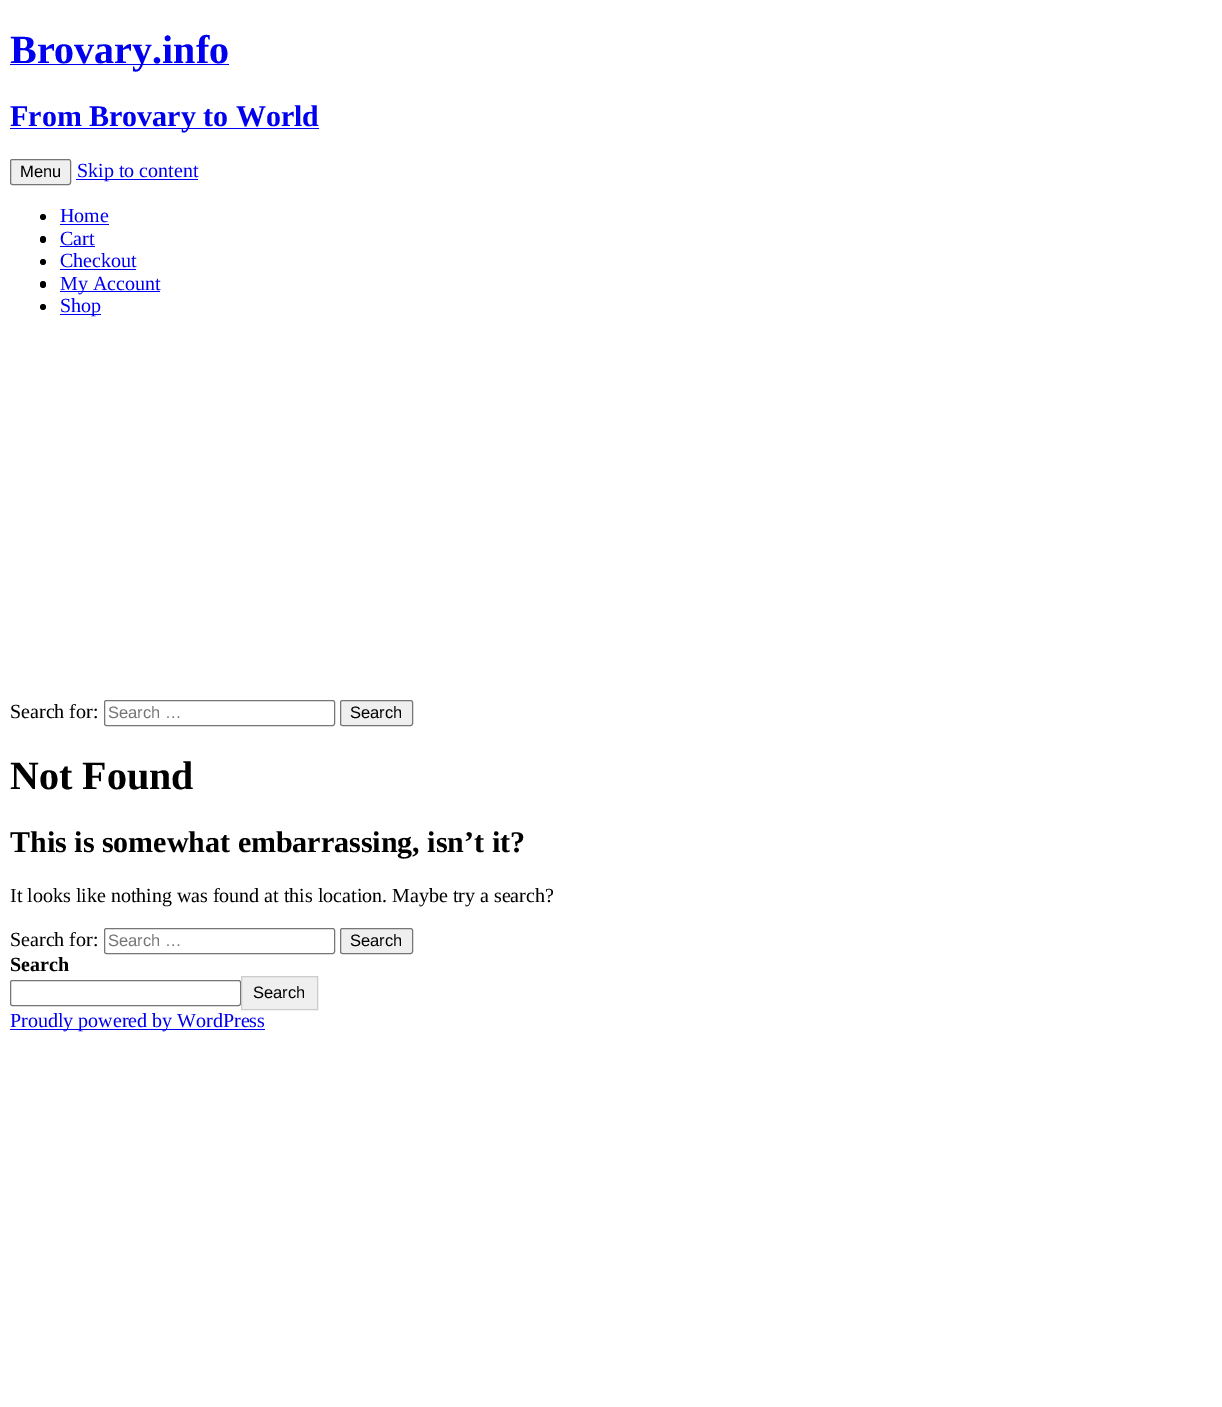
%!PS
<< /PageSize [1222 1407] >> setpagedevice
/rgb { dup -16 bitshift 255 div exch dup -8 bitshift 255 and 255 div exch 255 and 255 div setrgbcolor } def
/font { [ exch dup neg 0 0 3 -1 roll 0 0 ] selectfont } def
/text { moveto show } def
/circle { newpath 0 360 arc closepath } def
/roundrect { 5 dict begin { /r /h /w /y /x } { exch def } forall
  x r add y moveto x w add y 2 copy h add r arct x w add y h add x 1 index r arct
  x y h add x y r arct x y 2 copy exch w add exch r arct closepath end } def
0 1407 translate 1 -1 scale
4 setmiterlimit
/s1 { /LiberationSerif-Bold 40 font 16#0000EE rgb } def
/s2 { /LiberationSerif-Bold 30 font 16#0000EE rgb } def
/s3 { /LiberationSans-Regular 16.5 font 16#000000 rgb } def
/s4 { /LiberationSerif-Regular 20 font 16#0000EE rgb } def
/s5 { /LiberationSerif-Regular 20 font 16#000000 rgb } def
/s6 { /LiberationSans-Regular 16.5 font 16#757575 rgb } def
/s7 { /LiberationSerif-Bold 40 font 16#000000 rgb } def
/s8 { /LiberationSerif-Bold 30 font 16#000000 rgb } def
/s9 { /LiberationSerif-Bold 20 font 16#000000 rgb } def
16#FFFFFF rgb
0 0 1222 1407 rectfill
16#0000EE rgb
10 64 219 1 rectfill
s1
(Brovary.info) 10 63 text
10 128 309 1 rectfill
s2
(From Brovary to World) 10 126 text
16#EFEFEF rgb
10.5 159.5 60 25 2 roundrect gsave fill grestore
16#767676 rgb
stroke
s3
(Menu) 20 177 text
16#0000EE rgb
76 179 122 1 rectfill
s4
(Skip to content) 77 177 text
16#000000 rgb
43 217 3 circle fill
s4
(Home) 60 222 text
60 224 49 1 rectfill
16#000000 rgb
40 236 6 7 3 roundrect fill
s4
(Cart) 60 245 text
60 246 35 1 rectfill
16#000000 rgb
43 262 3 circle fill
s4
(Checkout) 60 267 text
60 269 76 1 rectfill
16#000000 rgb
40 281 6 7 3 roundrect fill
16#0000EE rgb
60 291 100 1 rectfill
(My Account) 60 290 text
16#000000 rgb
43 307 3 circle fill
16#0000EE rgb
60 314 41 1 rectfill
(Shop) 60 312 text
s5
(Search for:) 10 718 text
16#767676 rgb
104.5 700.5 230 25 2 roundrect stroke
s6
(Search …) 108 718 text
16#EFEFEF rgb
340.5 700.5 72 25 2 roundrect gsave fill grestore
16#767676 rgb
stroke
s3
(Search) 350 718 text
s7
(Not Found) 10 789 text
s8
(This is somewhat embarrassing, isn’t it?) 10 852 text
s5
(It looks like nothing was found at this location. Maybe try a search?) 10 902 text
(Search for:) 10 946 text
16#767676 rgb
104.5 928.5 230 25 2 roundrect stroke
s6
(Search …) 108 946 text
16#EFEFEF rgb
340.5 928.5 72 25 2 roundrect gsave fill grestore
16#767676 rgb
stroke
s3
(Search) 350 946 text
s9
(Search) 10 971 text
16#767676 rgb
10.5 980.5 230 25 2 roundrect stroke
16#EFEFEF rgb
241.5 976.5 moveto 317.5 976.5 lineto 317.5 1009.5 lineto 241.5 1009.5 lineto closepath gsave fill grestore
16#CCCCCC rgb
stroke
s3
(Search) 253 998 text
16#0000EE rgb
10 1029 255 1 rectfill
s4
(Proudly powered by WordPress) 10 1027 text
showpage
